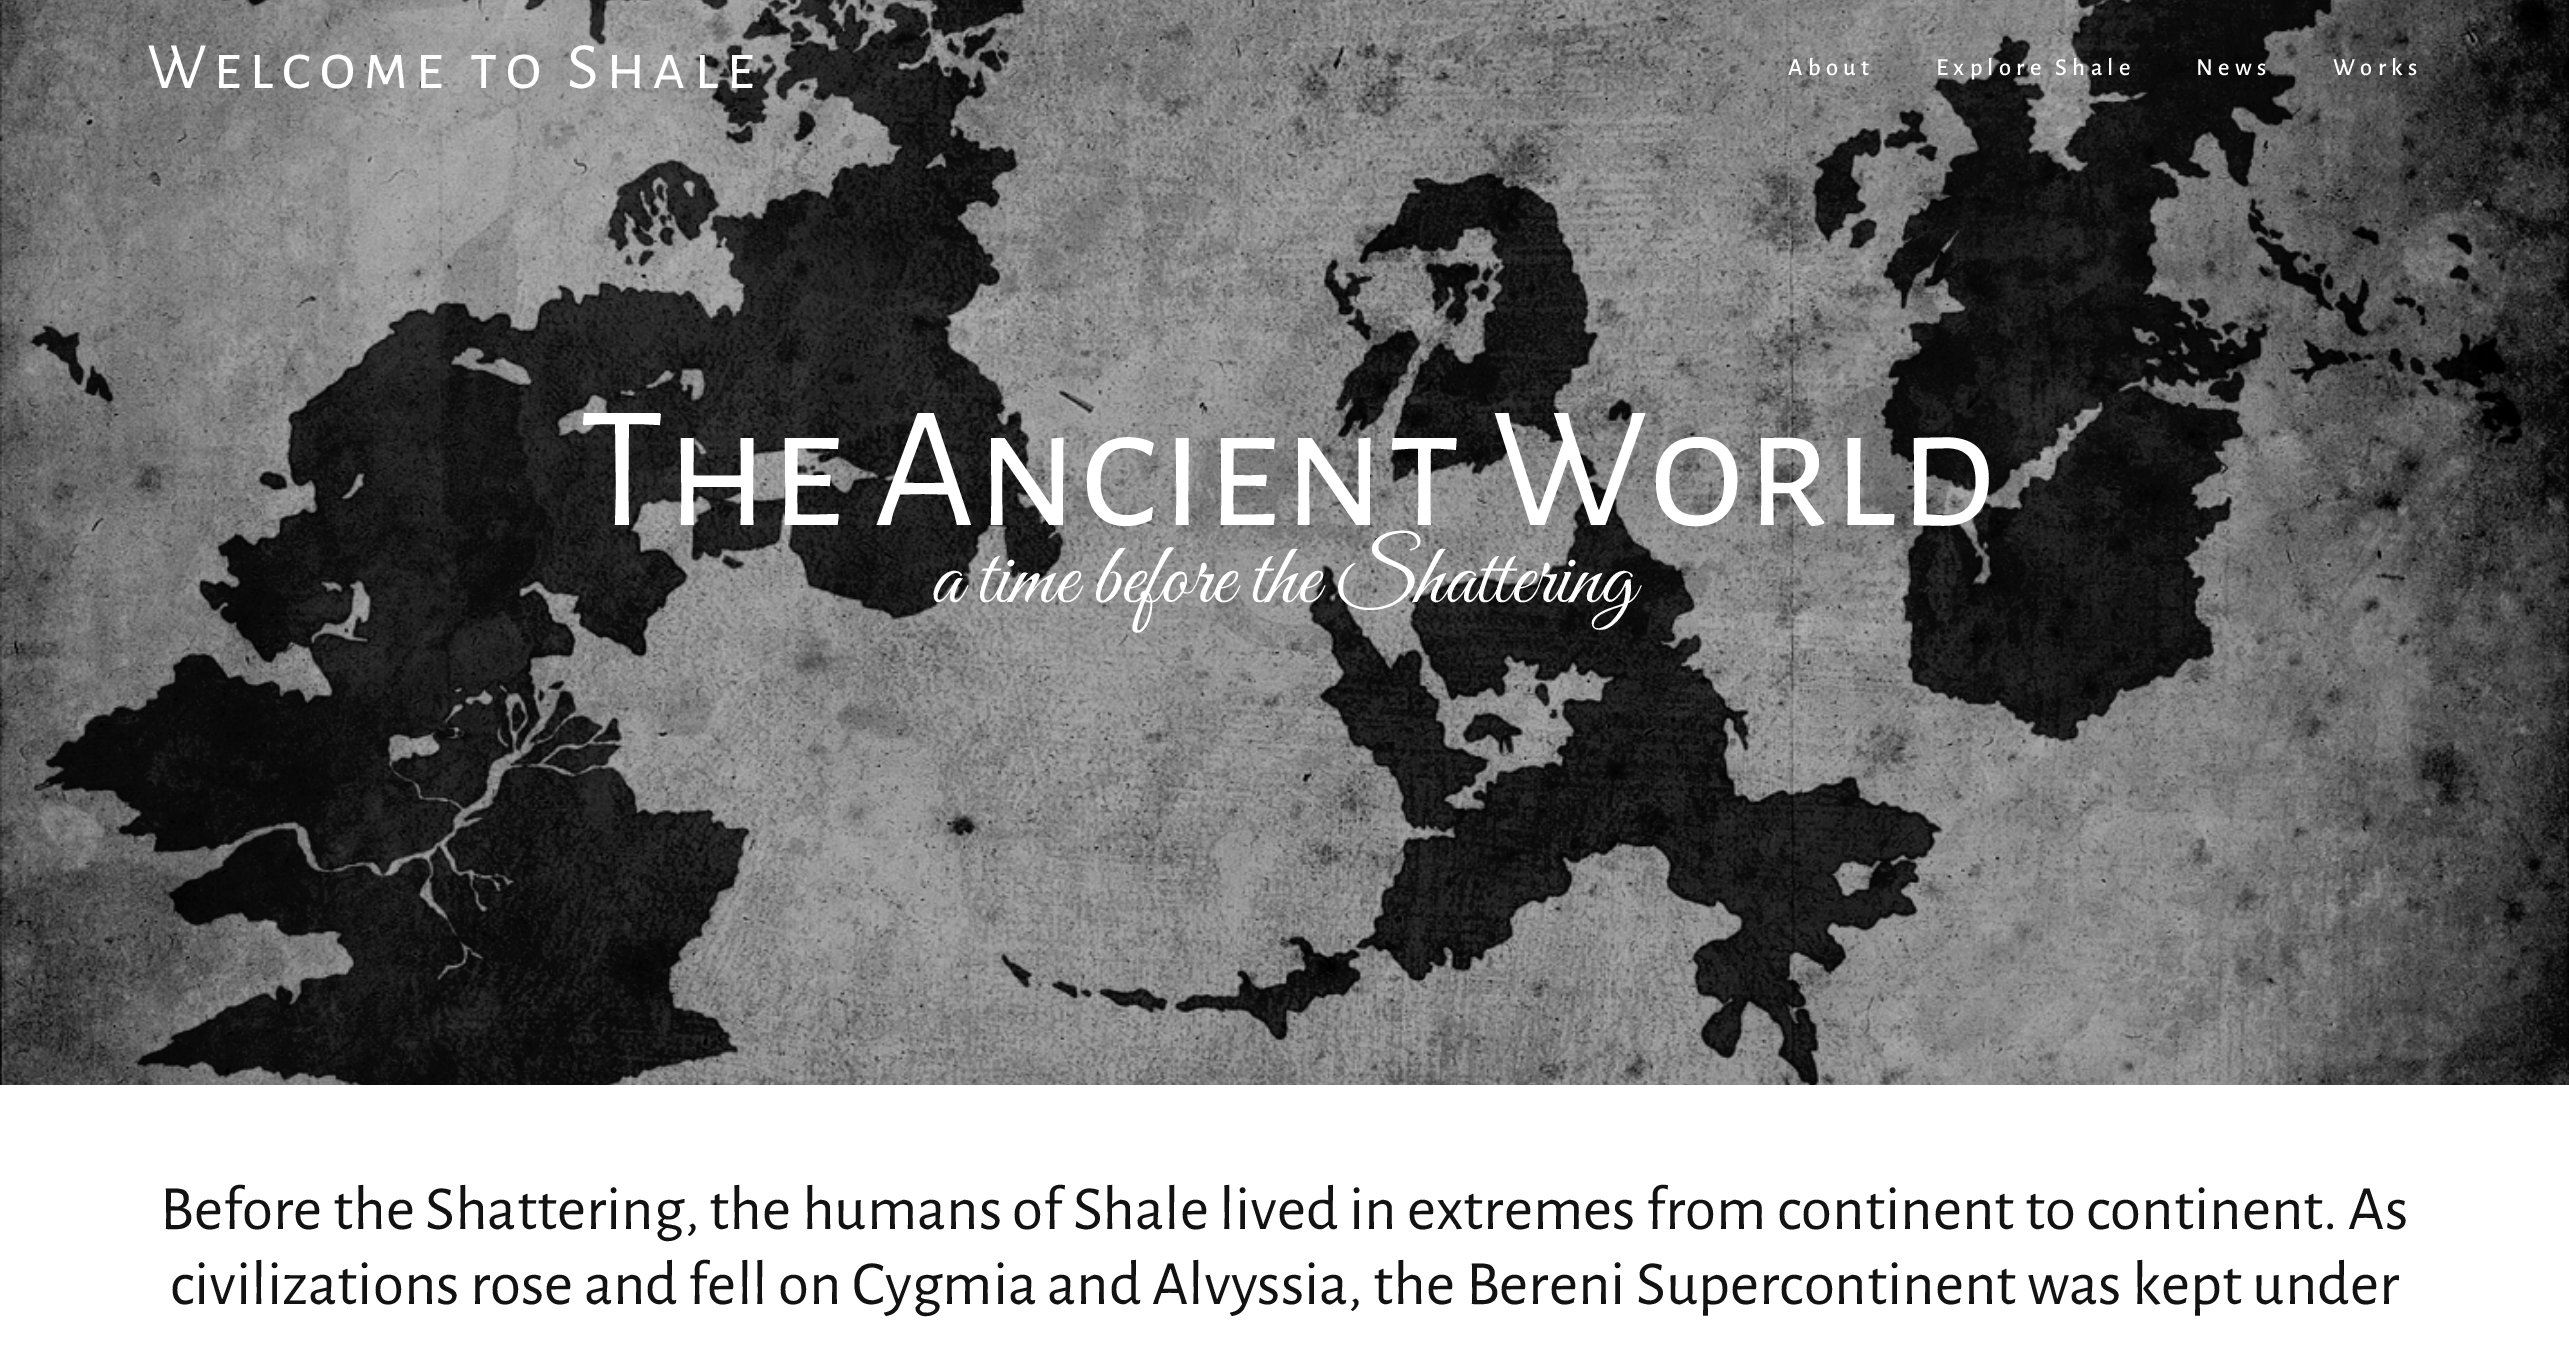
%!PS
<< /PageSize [2569 1361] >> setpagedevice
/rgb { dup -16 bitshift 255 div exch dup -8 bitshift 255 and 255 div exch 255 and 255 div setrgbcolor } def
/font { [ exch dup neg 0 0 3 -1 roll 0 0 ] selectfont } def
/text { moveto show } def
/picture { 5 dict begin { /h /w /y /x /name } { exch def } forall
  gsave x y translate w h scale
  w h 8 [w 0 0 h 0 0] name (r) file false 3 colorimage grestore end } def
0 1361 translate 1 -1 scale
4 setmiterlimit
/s1 { /AlegreyaSansSC-Regular 175 font 16#FFFFFF rgb } def
/s2 { /GreatVibes-Regular 87.5 font 16#FFFFFF rgb } def
/s3 { /AlegreyaSans-Regular 63 font 16#131212 rgb } def
16#FFFFFF rgb
0 0 2569 1361 rectfill
(pic1.raw) 0 0 2569 1085 picture
/AlegreyaSansSC-Regular 66.5 font
147 88 moveto 7 0 (Welcome to Shale) ashow
/AlegreyaSans-Medium 24.5 font
1788 75 moveto 5.25 0 (About) ashow
1936 75 moveto 5.25 0 (Explore Shale) ashow
2196 75 moveto 5.25 0 (News) ashow
2333 75 moveto 5.25 0 (Works) ashow
s1
(The Ancient World) 579 525 text
s2
(a time before the Shattering) 931 602 text
s3
(Before the Shattering, the humans of Shale lived in extremes from continent to continent. As) 160 1229 text
(civilizations rose and fell on Cygmia and Alvyssia, the Bereni Supercontinent was kept under) 170 1304 text
showpage
